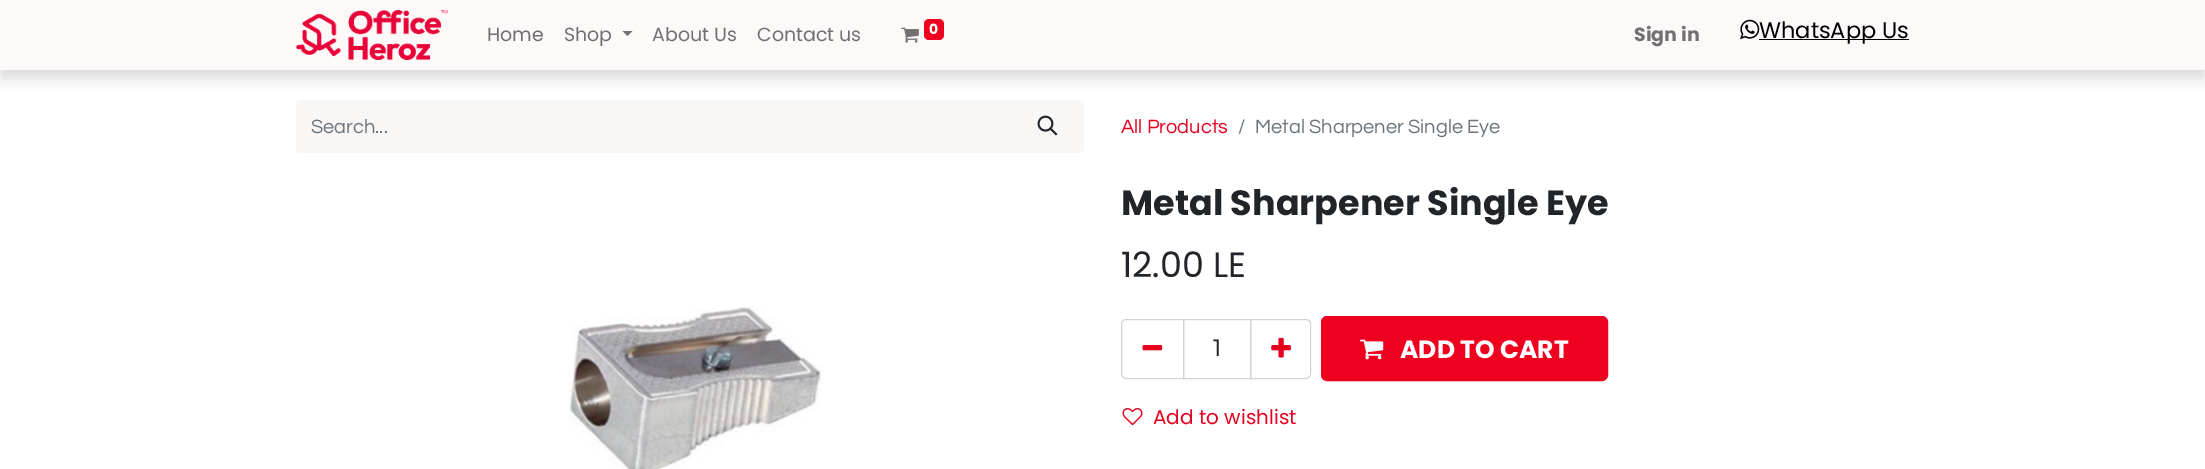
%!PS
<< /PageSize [2205 469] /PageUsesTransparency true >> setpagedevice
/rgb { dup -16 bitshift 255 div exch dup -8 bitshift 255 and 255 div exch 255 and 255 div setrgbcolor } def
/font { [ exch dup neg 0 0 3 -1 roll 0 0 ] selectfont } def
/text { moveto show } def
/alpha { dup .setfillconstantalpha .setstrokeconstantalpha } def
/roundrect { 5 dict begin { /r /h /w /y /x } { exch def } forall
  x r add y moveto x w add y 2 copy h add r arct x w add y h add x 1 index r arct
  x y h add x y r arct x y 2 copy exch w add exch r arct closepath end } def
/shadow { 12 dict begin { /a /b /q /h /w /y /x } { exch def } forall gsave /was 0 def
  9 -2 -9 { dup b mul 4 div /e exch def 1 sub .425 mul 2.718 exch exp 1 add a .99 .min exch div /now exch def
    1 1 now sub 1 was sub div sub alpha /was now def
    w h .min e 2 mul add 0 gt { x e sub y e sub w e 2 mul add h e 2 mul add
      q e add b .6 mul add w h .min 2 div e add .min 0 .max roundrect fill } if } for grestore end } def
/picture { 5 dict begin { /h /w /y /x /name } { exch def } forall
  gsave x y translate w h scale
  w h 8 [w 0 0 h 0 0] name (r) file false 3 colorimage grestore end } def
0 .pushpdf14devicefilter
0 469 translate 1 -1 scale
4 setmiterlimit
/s1 { /Poppins-Regular 19 font 16#727070 rgb } def
/s2 { /Poppins-Bold 14 font 16#FFFFFF rgb } def
/s3 { /Poppins-Bold 19 font 16#727070 rgb } def
/s4 { /Poppins-Regular 22.5 font 16#000000 rgb } def
/s5 { /Questrial-Regular 20 font 16#6C757D rgb } def
/s6 { /Questrial-Regular 20 font 16#E6001E rgb } def
/s7 { /Poppins-Bold 35 font 16#212529 rgb } def
/s8 { /Poppins-Regular 35 font 16#212529 rgb } def
/s9 { /Questrial-Regular 25 font 16#212529 rgb } def
/s10 { /Poppins-Bold 25 font 16#FFFFFF rgb } def
/s11 { /Poppins-Regular 20 font 16#E6001E rgb } def
16#FFFFFF rgb
0 0 2205 469 rectfill
16#F9F6F6 rgb
301 100 moveto 1013 100 lineto 1013 153 lineto 301 153 lineto 298 153 296 151 296 148 curveto 296 105 lineto 296 102 298 100 301 100 curveto closepath fill
1011 100 moveto 1079 100 lineto 1082 100 1084 102 1084 105 curveto 1084 148 lineto 1084 151 1082 153 1079 153 curveto 1011 153 lineto closepath fill
16#000000 rgb
0 8 2205 70 0 7.5 0.15 shadow
16#FEF9F9 rgb
0 0 2205 70 rectfill
(pic1.raw) 296 10 152 50 picture
s1
(Home) 487 41 text
(Shop) 564 41 text
622.5 31 moveto 632.5 31 lineto 627.5 36 lineto closepath fill
(About Us) 652 41 text
(Contact us) 757 41 text
(pic2.raw) 901 27 18 16 picture
16#F0001F rgb
924 19 20 21 5 roundrect fill
s2
(0) 929 34 text
s3
(Sign in) 1634 41 text
(pic3.raw) 1740 19 20 21 picture
16#000000 rgb
1759 39 150 1 rectfill
s4
(WhatsApp Us) 1759 38 text
s5
(Search...) 311 133 text
(pic4.raw) 1037 115 21 21 picture
s6
(All Products) 1121 133 text
s5
(/) 1238 133 text
(Metal Sharpener Single Eye) 1255 133 text
(pic5.raw) 569 306 254 163 picture
s7
(Metal Sharpener Single Eye) 1121 215 text
s8
(12.00 LE) 1121 277 text
16#CED4DA rgb
1183.5 319.5 67 59 rectstroke
1126 319.5 moveto 1183.5 319.5 lineto 1183.5 378.5 lineto 1126 378.5 lineto 1123.5 378.5 1121.5 376.5 1121.5 374 curveto 1121.5 324 lineto 1121.5 321.5 1123.5 319.5 1126 319.5 curveto closepath stroke
(pic6.raw) 1142 345 21 6 picture
s9
(1) 1210 356 text
16#CED4DA rgb
1250.5 319.5 moveto 1306 319.5 lineto 1308.5 319.5 1310.5 321.5 1310.5 324 curveto 1310.5 374 lineto 1310.5 376.5 1308.5 378.5 1306 378.5 curveto 1250.5 378.5 lineto closepath stroke
(pic7.raw) 1271 337 20 21 picture
16#F0001F rgb
1321.5 316.5 286 64 5.5 roundrect gsave fill grestore
stroke
(pic8.raw) 1360 339 24 21 picture
s10
(ADD TO CART) 1400 358 text
(pic9.raw) 1122 408 21 18 picture
s11
(Add to wishlist) 1153 424 text
.poppdf14devicefilter showpage
